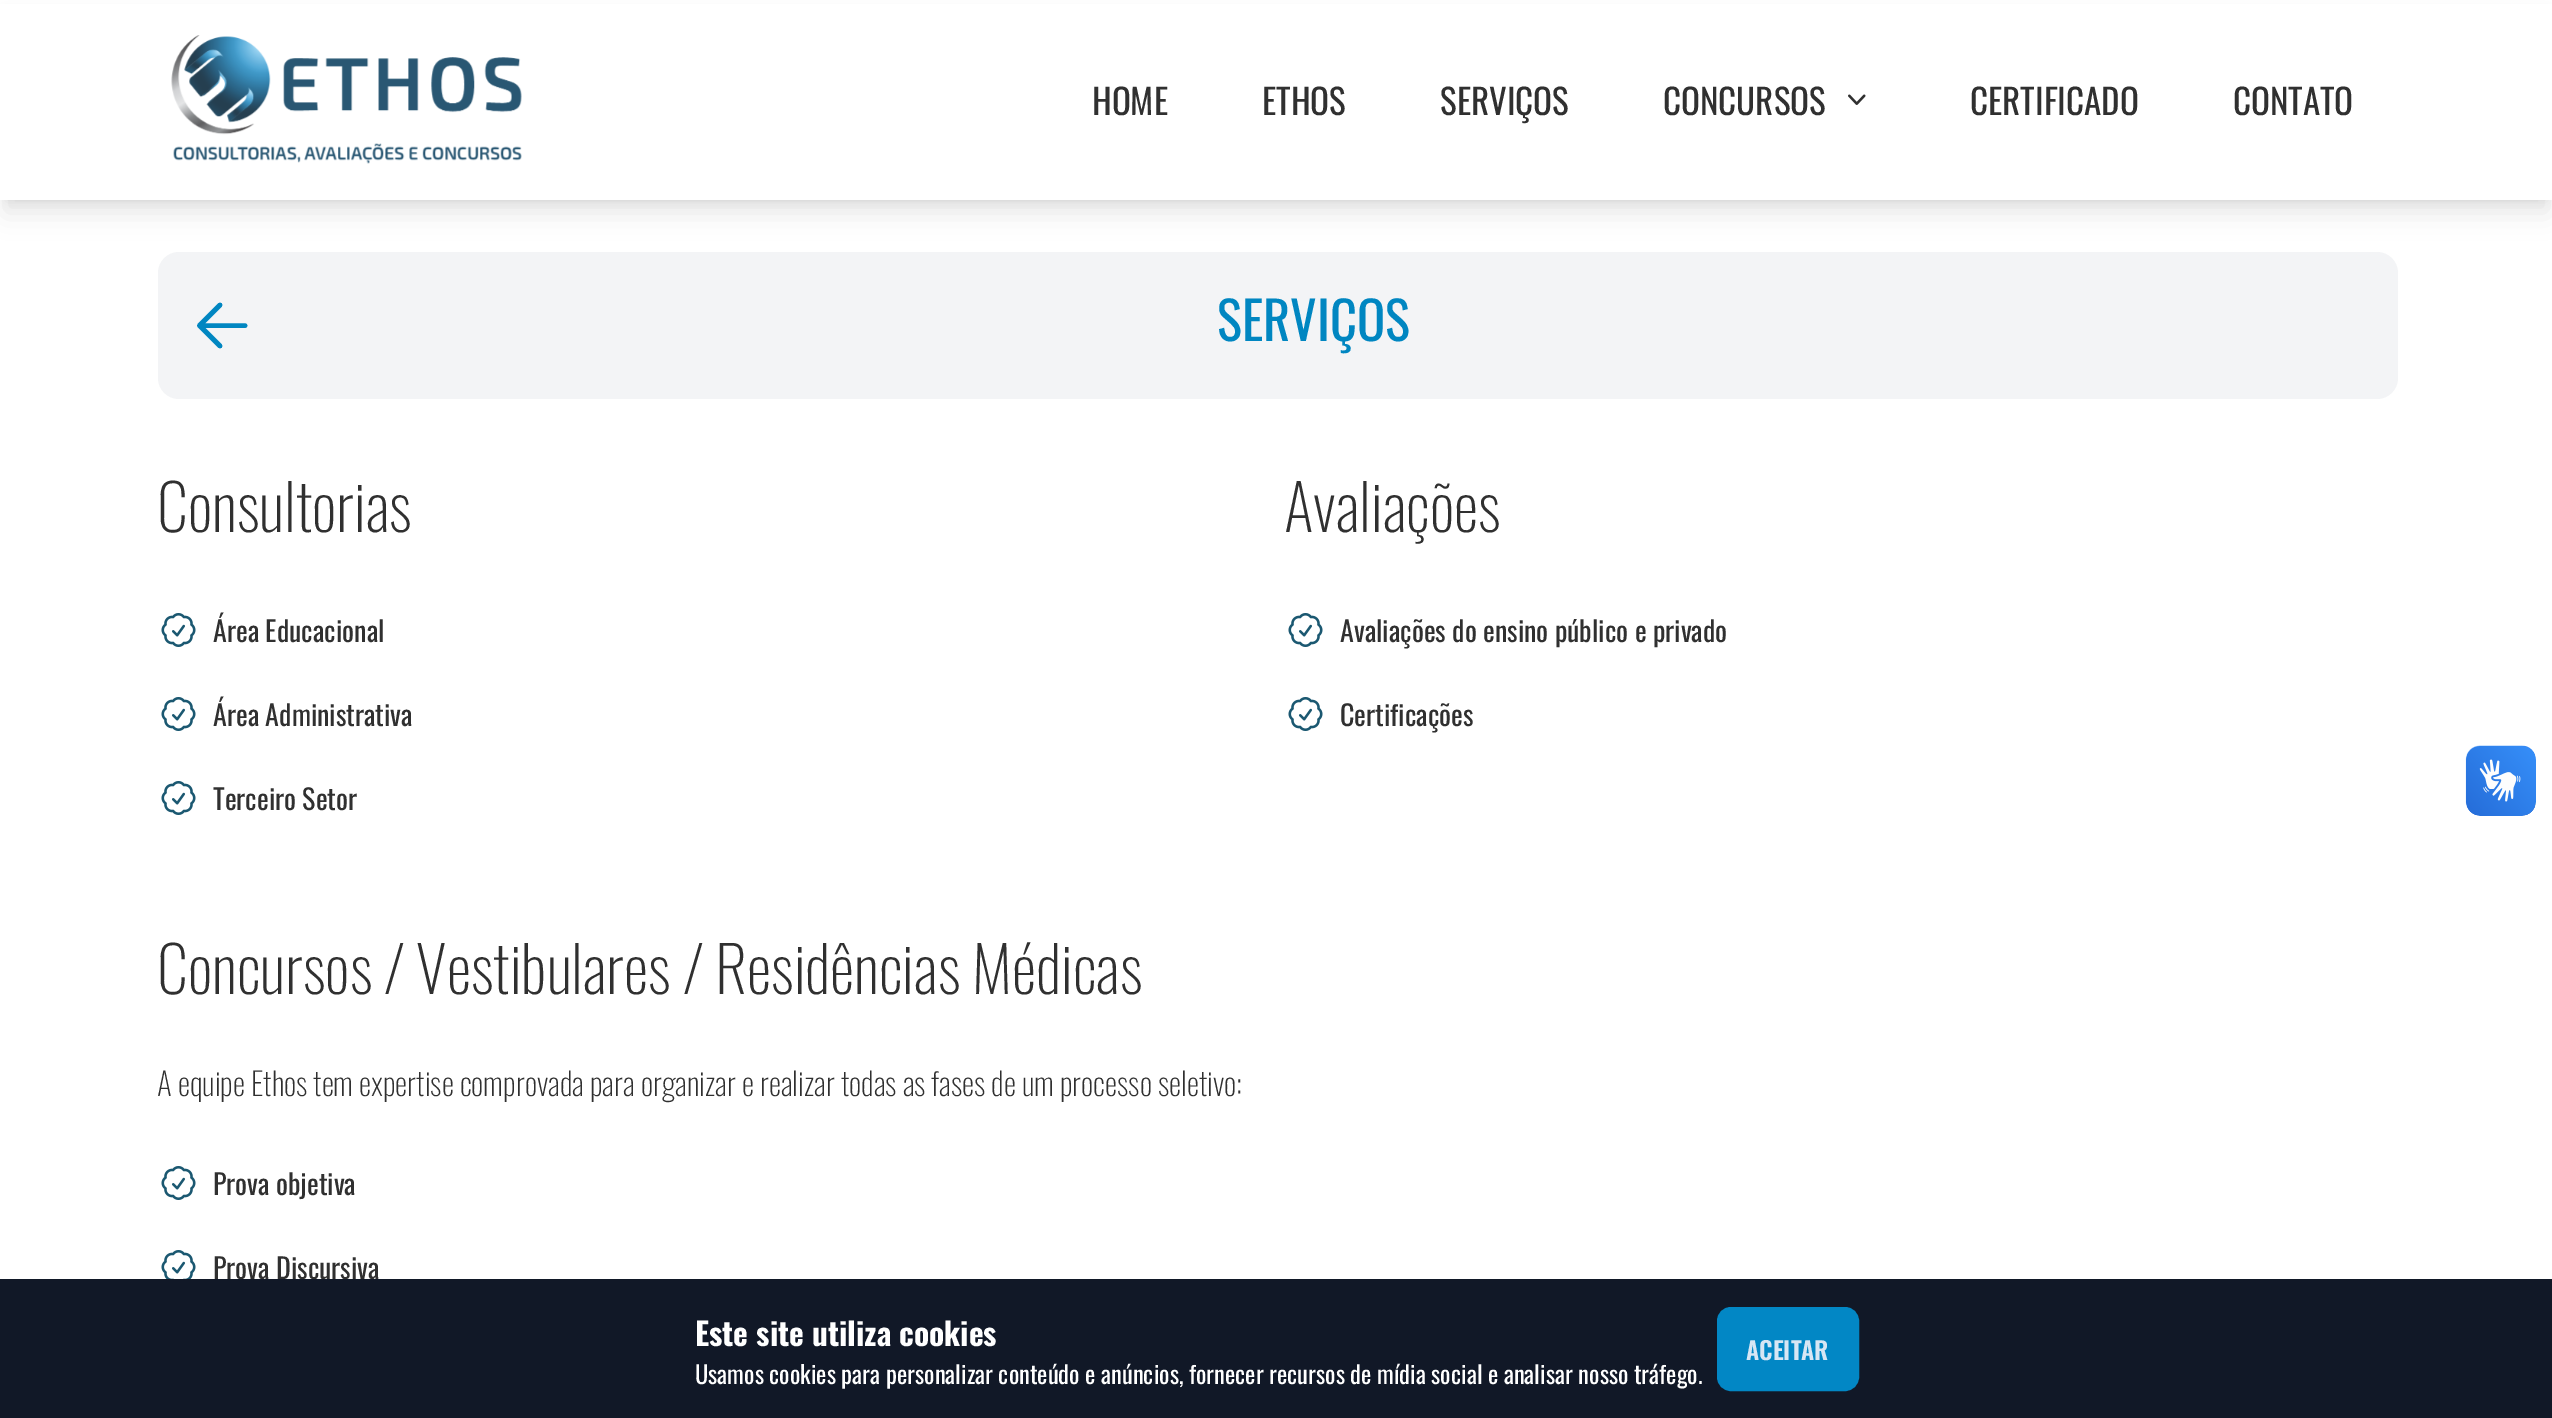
%!PS
<< /PageSize [2552 1418] /PageUsesTransparency true >> setpagedevice
/rgb { dup -16 bitshift 255 div exch dup -8 bitshift 255 and 255 div exch 255 and 255 div setrgbcolor } def
/font { [ exch dup neg 0 0 3 -1 roll 0 0 ] selectfont } def
/text { moveto show } def
/alpha { dup .setfillconstantalpha .setstrokeconstantalpha } def
/roundrect { 5 dict begin { /r /h /w /y /x } { exch def } forall
  x r add y moveto x w add y 2 copy h add r arct x w add y h add x 1 index r arct
  x y h add x y r arct x y 2 copy exch w add exch r arct closepath end } def
/shadow { 12 dict begin { /a /b /q /h /w /y /x } { exch def } forall gsave /was 0 def
  9 -2 -9 { dup b mul 4 div /e exch def 1 sub .425 mul 2.718 exch exp 1 add a .99 .min exch div /now exch def
    1 1 now sub 1 was sub div sub alpha /was now def
    w h .min e 2 mul add 0 gt { x e sub y e sub w e 2 mul add h e 2 mul add
      q e add b .6 mul add w h .min 2 div e add .min 0 .max roundrect fill } if } for grestore end } def
/picture { 5 dict begin { /h /w /y /x /name } { exch def } forall
  gsave x y translate w h scale
  w h 8 [w 0 0 h 0 0] name (r) file false 3 colorimage grestore end } def
0 .pushpdf14devicefilter
0 1418 translate 1 -1 scale
4 setmiterlimit
/s1 { /Oswald-Regular 35 font 16#303030 rgb } def
/s2 { /Oswald-Regular 52.5 font 16#0086C1 rgb } def
/s3 { /Oswald-ExtraLight 63 font 16#303030 rgb } def
/s4 { /Oswald-Regular 28 font 16#303030 rgb } def
/s5 { /Oswald-ExtraLight 31.5 font 16#303030 rgb } def
/s6 { /Oswald-Bold 31.5 font 16#FFFFFF rgb } def
/s7 { /Oswald-Regular 24.5 font 16#FFFFFF rgb } def
/s8 { /Oswald-SemiBold 24.5 font 16#D7E6F4 rgb } def
16#FFFFFF rgb
0 0 2552 1418 rectfill
16#000000 rgb
7 14 2539 186 0 5 0.1 shadow
5 23 2543 189 0 13 0.1 shadow
16#FFFFFF rgb
0 4 2552 196 rectfill
(pic1.raw) 171 35 351 129 picture
s1
(HOME) 1092 115 text
(ETHOS) 1262 115 text
(SERVIÇOS) 1440 115 text
(CONCURSOS) 1663 115 text
(pic2.raw) 1848 94 18 11 picture
(CERTIFICADO) 1970 115 text
(CONTATO) 2233 115 text
16#F3F4F6 rgb
158 252 2240 147 21 roundrect fill
16#0086C1 rgb
4.6 setlinewidth
1 setlinecap
1 setlinejoin
245 325.5 moveto 199.5 325.5 lineto 199.5 325.5 moveto 220 346 lineto 199.5 325.5 moveto 220 305 lineto stroke
s2
(SERVIÇOS) 1217 341 text
s3
(Consultorias) 157 532 text
(pic3.raw) 161 613 35 34 picture
s4
(Área Educacional) 213 642 text
(pic3.raw) 161 697 35 34 picture
(Área Administrativa) 213 726 text
(pic3.raw) 161 781 35 34 picture
(Terceiro Setor) 213 810 text
s3
(Avaliações) 1284 532 text
(pic3.raw) 1288 613 35 34 picture
s4
(Avaliações do ensino público e privado) 1340 642 text
(pic3.raw) 1288 697 35 34 picture
(Certificações) 1340 726 text
s3
(Concursos / Vestibulares / Residências Médicas) 157 994 text
s5
(A equipe Ethos tem expertise comprovada para organizar e realizar todas as fases de um processo seletivo:) 157 1096 text
(pic3.raw) 161 1166 35 34 picture
s4
(Prova objetiva) 213 1195 text
(pic4.raw) 161 1250 35 29 picture
(Prova Discursiva) 213 1279 text
(pic5.raw) 2465 745 71 71 picture
(pic6.raw) 2466 746 70 70 picture
16#111827 rgb
0 1279 2552 139 rectfill
s6
(Este site utiliza cookies) 695 1346 text
s7
(Usamos cookies para personalizar conteúdo e anúncios, fornecer recursos de mídia social e analisar nosso tráfego.) 695 1384 text
16#0287C5 rgb
1718 1308 140 82 13 roundrect gsave fill grestore
2 setlinewidth
0 setlinecap
0 setlinejoin
stroke
s8
(ACEITAR) 1746 1360 text
.poppdf14devicefilter showpage
